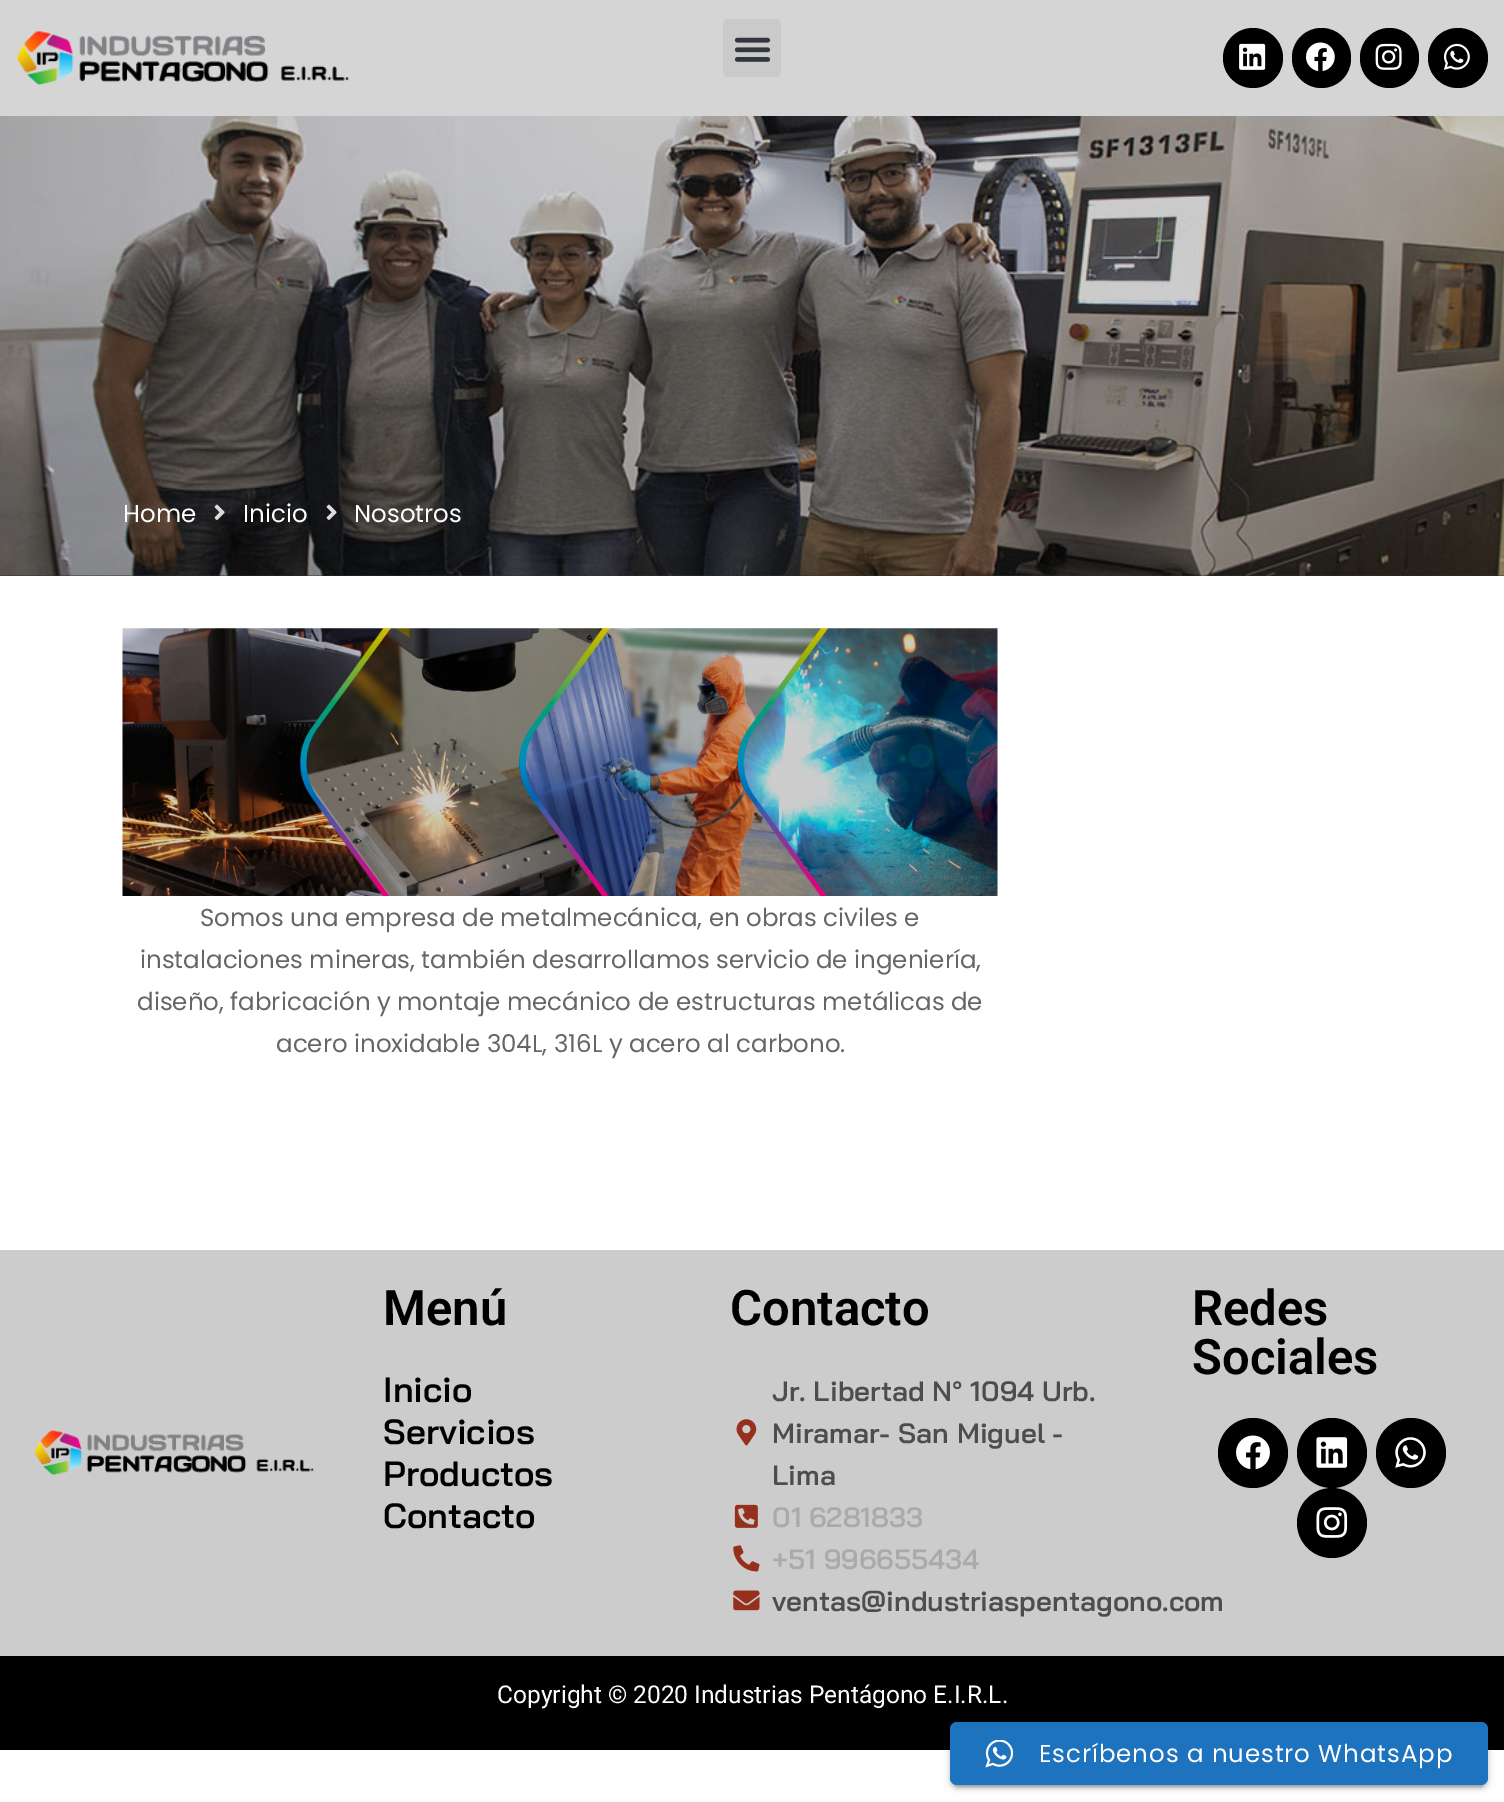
%!PS
<< /PageSize [1504 1802] /PageUsesTransparency true >> setpagedevice
/rgb { dup -16 bitshift 255 div exch dup -8 bitshift 255 and 255 div exch 255 and 255 div setrgbcolor } def
/font { [ exch dup neg 0 0 3 -1 roll 0 0 ] selectfont } def
/text { moveto show } def
/alpha { dup .setfillconstantalpha .setstrokeconstantalpha } def
/circle { newpath 0 360 arc closepath } def
/roundrect { 5 dict begin { /r /h /w /y /x } { exch def } forall
  x r add y moveto x w add y 2 copy h add r arct x w add y h add x 1 index r arct
  x y h add x y r arct x y 2 copy exch w add exch r arct closepath end } def
/shadow { 12 dict begin { /a /b /q /h /w /y /x } { exch def } forall gsave /was 0 def
  9 -2 -9 { dup b mul 4 div /e exch def 1 sub .425 mul 2.718 exch exp 1 add a .99 .min exch div /now exch def
    1 1 now sub 1 was sub div sub alpha /was now def
    w h .min e 2 mul add 0 gt { x e sub y e sub w e 2 mul add h e 2 mul add
      q e add b .6 mul add w h .min 2 div e add .min 0 .max roundrect fill } if } for grestore end } def
/picture { 5 dict begin { /h /w /y /x /name } { exch def } forall
  gsave x y translate w h scale
  w h 8 [w 0 0 h 0 0] name (r) file false 3 colorimage grestore end } def
0 .pushpdf14devicefilter
0 1802 translate 1 -1 scale
4 setmiterlimit
/s1 { /Poppins-Regular 24.5 font 16#FFFFFF rgb } def
/s2 { /Poppins-Regular 24.5 font 16#666666 rgb } def
/s3 { /Roboto-SemiBold 49 font 16#000000 rgb } def
/s4 { /BaiJamjuree-SemiBold 35 font 16#000000 rgb } def
/s5 { /BaiJamjuree-SemiBold 28 font 16#4D4D4D rgb } def
/s6 { /BaiJamjuree-SemiBold 28 font 16#AAAAAA rgb } def
/s7 { /Roboto-Regular 24.5 font 16#FFFFFF rgb } def
16#FFFFFF rgb
0 0 1504 1802 rectfill
16#D5D5D5 rgb
0 0 1504 116 rectfill
(pic1.raw) 17 31 332 55 picture
16#CACACA rgb
723 19 58 58 5 roundrect fill
(pic2.raw) 734 37 37 25 picture
16#000000 rgb
1253 58 30 circle fill
(pic3.raw) 1239 43 27 27 picture
1292 28 59 60 29.5 roundrect fill
(pic4.raw) 1306 42 29 30 picture
1360 28 59 60 29.5 roundrect fill
(pic5.raw) 1375 43 27 27 picture
1458 58 30 circle fill
(pic6.raw) 1443 43 27 27 picture
16#2D2D2D rgb
0 575 1504 1 rectfill
(pic7.raw) 0 116 1504 460 picture
s1
(Home) 123 522 text
(pic8.raw) 214 504 11 16 picture
(Inicio) 243 522 text
(pic9.raw) 326 504 11 16 picture
(Nosotros) 354 522 text
(pic10.raw) 122 628 876 268 picture
s2
(Somos una empresa de metalmecánica, en obras civiles e) 200 926 text
(instalaciones mineras, también desarrollamos servicio de ingeniería,) 140 968 text
(diseño, fabricación y montaje mecánico de estructuras metálicas de) 137 1010 text
(acero inoxidable 304L, 316L y acero al carbono.) 276 1052 text
16#CCCCCC rgb
0 1250 1504 406 rectfill
(pic11.raw) 35 1430 279 46 picture
s3
(Menú) 383 1325 text
s4
(Inicio) 383 1402 text
(Servicios) 383 1444 text
(Productos) 383 1486 text
(Contacto) 383 1528 text
s3
(Contacto) 730 1325 text
(pic12.raw) 736 1419 21 27 picture
s5
(Jr. Libertad N° 1094 Urb.) 772 1401 text
(Miramar- San Miguel -) 772 1443 text
(Lima) 772 1485 text
(pic13.raw) 734 1504 24 24 picture
s6
(01 6281833) 772 1527 text
(pic14.raw) 733 1545 27 27 picture
(+51 996655434) 772 1569 text
(pic15.raw) 733 1590 27 21 picture
s5
(ventas@industriaspentagono.com) 772 1611 text
s3
(Redes) 1192 1325 text
(Sociales) 1192 1374 text
1253 1453 35 circle fill
(pic16.raw) 1236 1435 34 35 picture
1332 1453 35 circle fill
(pic17.raw) 1316 1437 32 31 picture
1411 1453 35 circle fill
(pic18.raw) 1395 1437 31 31 picture
1332 1523 35 circle fill
(pic19.raw) 1316 1507 32 31 picture
0 1656 1504 94 rectfill
s7
(Copyright © 2020 Industrias Pentágono E.I.R.L.) 497 1703 text
16#000000 rgb
954 1731 530 56 4 1 0.2 shadow
950 1724 538 63 7 4.5 0.12 shadow
950 1726 538 63 7 2 0.14 shadow
16#1E73BE rgb
950 1722 538 63 7 roundrect fill
(pic20.raw) 985 1740 28 28 picture
/Poppins-Regular 24.5 font
16#FFFFFF rgb
1039 1762 moveto 0.9 0 (Escríbenos a nuestro WhatsApp) ashow
.poppdf14devicefilter showpage
